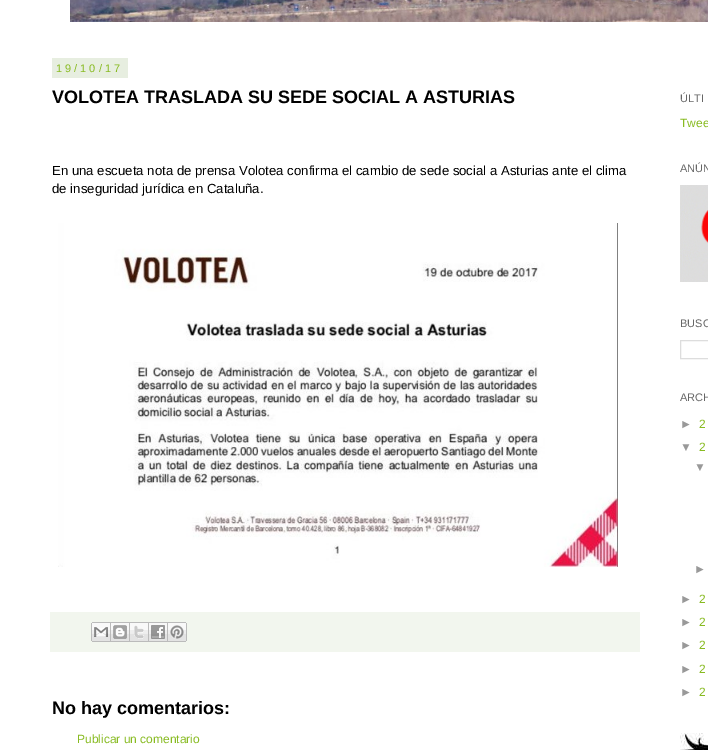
%!PS
<< /PageSize [708 750] >> setpagedevice
/rgb { dup -16 bitshift 255 div exch dup -8 bitshift 255 and 255 div exch 255 and 255 div setrgbcolor } def
/font { [ exch dup neg 0 0 3 -1 roll 0 0 ] selectfont } def
/text { moveto show } def
/picture { 5 dict begin { /h /w /y /x /name } { exch def } forall
  gsave x y translate w h scale
  w h 8 [w 0 0 h 0 0] name (r) file false 3 colorimage grestore end } def
0 750 translate 1 -1 scale
4 setmiterlimit
/s1 { /LiberationSans-Bold 18 font 16#000000 rgb } def
/s2 { /LiberationSans-Regular 13.2 font 16#000000 rgb } def
/s3 { /LiberationSans-Regular 12 font 16#88BB21 rgb } def
/s4 { /LiberationSans-Regular 11 font 16#666666 rgb } def
/s5 { /LiberationSans-Regular 12 font 16#999999 rgb } def
16#FFFFFF rgb
0 0 708 750 rectfill
(pic1.raw) 70 0 638 22 picture
16#E7EEE0 rgb
52 58 76 20 rectfill
/LiberationSans-Regular 11 font
16#88BB21 rgb
56 72 moveto 3 0 (19/10/17) ashow
s1
(VOLOTEA TRASLADA SU SEDE SOCIAL A ASTURIAS) 52 103 text
s2
(En una escueta nota de prensa Volotea confirma el cambio de sede social a Asturias ante el clima) 52 175 text
(de inseguridad jurídica en Cataluña.) 52 193 text
(pic2.raw) 58 223 560 344 picture
16#F2F6EE rgb
50 612 590 40 rectfill
(pic3.raw) 91 622 20 20 picture
(pic4.raw) 111 622 19 20 picture
(pic5.raw) 130 622 19 20 picture
(pic6.raw) 149 622 19 20 picture
(pic7.raw) 168 622 19 20 picture
s1
(No hay comentarios:) 52 714 text
s3
(Publicar un comentario) 77 743 text
s4
(ÚLTI) 680 102 text
s3
(Twee) 680 127 text
s4
(ANÚN) 680 172 text
(pic8.raw) 680 185 28 97 picture
(BUSC) 680 327 text
16#DDDDDD rgb
680.5 340.5 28 18 rectstroke
s4
(ARCH) 680 401 text
s5
(►) 680 428 text
s3
(2) 699 428 text
s5
(▼) 680 451 text
s3
(2) 699 451 text
s5
(▼) 694 471 text
(►) 694 573 text
(►) 680 603 text
s3
(2) 699 603 text
s5
(►) 680 626 text
s3
(2) 699 626 text
s5
(►) 680 649 text
s3
(2) 699 649 text
s5
(►) 680 673 text
s3
(2) 699 673 text
s5
(►) 680 696 text
s3
(2) 699 696 text
(pic9.raw) 680 733 28 17 picture
showpage
